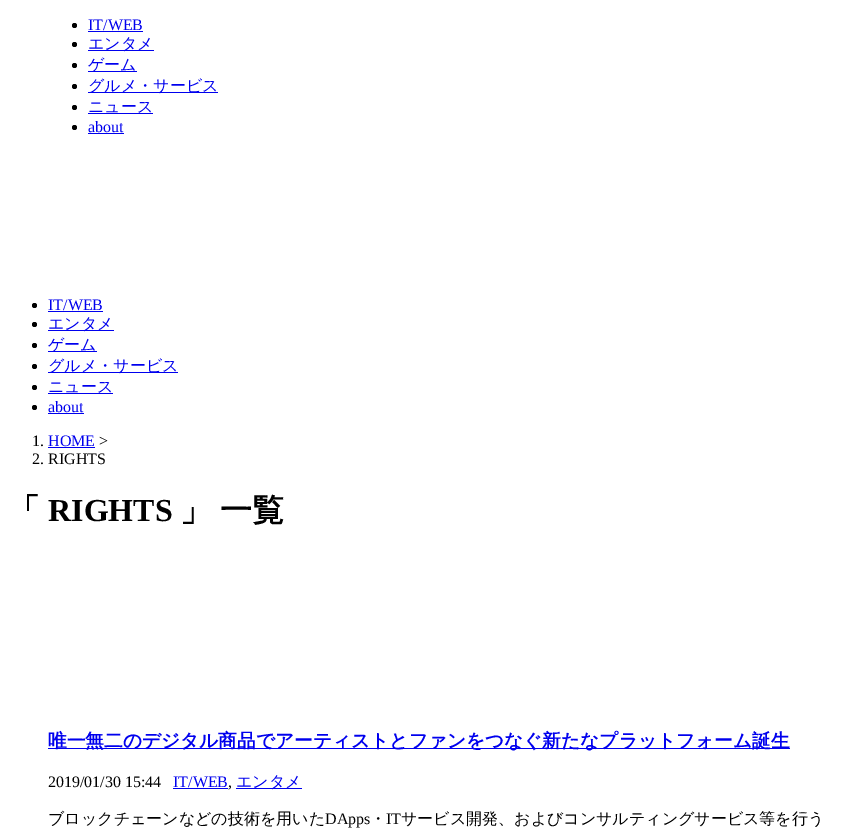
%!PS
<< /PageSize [841 828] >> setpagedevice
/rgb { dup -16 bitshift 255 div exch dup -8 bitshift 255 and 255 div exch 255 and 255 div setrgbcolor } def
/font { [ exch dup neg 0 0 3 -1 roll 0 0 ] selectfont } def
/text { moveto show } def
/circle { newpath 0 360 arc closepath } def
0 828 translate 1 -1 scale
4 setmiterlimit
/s1 { /LiberationSerif-Regular 16 font 16#0000EE rgb } def
/s2 { /WenQuanYiZenHei-Medium 16 font 16#0000EE rgb } def
/s3 { /LiberationSerif-Regular 16 font 16#000000 rgb } def
/s4 { /WenQuanYiZenHei-Bold 32 font 16#000000 rgb } def
/s5 { /LiberationSerif-Bold 32 font 16#000000 rgb } def
/s6 { /WenQuanYiZenHei-Bold 18.7 font 16#0000EE rgb } def
/s7 { /WenQuanYiZenHei-Medium 16 font 16#000000 rgb } def
16#FFFFFF rgb
0 0 841 828 rectfill
16#000000 rgb
74.5 25.5 2.5 circle fill
s1
(IT/WEB) 88 30 text
88 31 55 1 rectfill
16#000000 rgb
74.5 44.5 2.5 circle fill
16#0000EE rgb
88 50 66 1 rectfill
s2
(エンタメ) 88 49 text
16#000000 rgb
74.5 65.5 2.5 circle fill
16#0000EE rgb
88 71 49 1 rectfill
(ゲーム) 88 70 text
16#000000 rgb
74.5 86.5 2.5 circle fill
16#0000EE rgb
88 92 130 1 rectfill
(グルメ・サービス) 88 91 text
16#000000 rgb
74.5 107.5 2.5 circle fill
s2
(ニュース) 88 112 text
88 113 65 1 rectfill
16#000000 rgb
74.5 127.5 2.5 circle fill
s1
(about) 88 132 text
88 133 36 1 rectfill
16#000000 rgb
34.5 305.5 2.5 circle fill
s1
(IT/WEB) 48 310 text
48 311 55 1 rectfill
16#000000 rgb
34.5 324.5 2.5 circle fill
16#0000EE rgb
48 330 66 1 rectfill
s2
(エンタメ) 48 329 text
16#000000 rgb
34.5 345.5 2.5 circle fill
16#0000EE rgb
48 351 49 1 rectfill
(ゲーム) 48 350 text
16#000000 rgb
34.5 366.5 2.5 circle fill
16#0000EE rgb
48 372 130 1 rectfill
(グルメ・サービス) 48 371 text
16#000000 rgb
34.5 387.5 2.5 circle fill
s2
(ニュース) 48 392 text
48 393 65 1 rectfill
16#000000 rgb
34.5 407.5 2.5 circle fill
s1
(about) 48 412 text
48 413 36 1 rectfill
s3
(1.) 32 446 text
s1
(HOME) 48 446 text
48 447 47 1 rectfill
s3
(>) 99 446 text
(2. RIGHTS) 32 464 text
s4
(「) 8 521 text
s5
(RIGHTS) 48 521 text
/WenQuanYiZenHei-Bold 32 font
180 521 moveto -2 0 32 (」 一覧) widthshow
16#0000EE rgb
48 748 742 1 rectfill
s6
(唯一無二のデジタル商品でアーティストとファンをつなぐ新たなプラットフォーム誕生) 48 747 text
s3
(2019/01/30 15:44) 48 787 text
s1
(IT/WEB) 173 787 text
s3
(,) 228 787 text
16#0000EE rgb
173 788 55 1 rectfill
236 788 66 1 rectfill
s2
(エンタメ) 236 787 text
s7
(ブロックチェーンなどの技術を用いた) 48 824 text
s3
(DApps) 325 824 text
s7
(・) 370 824 text
s3
(IT) 386 824 text
s7
(サービス開発、およびコンサルティングサービス等を行う) 401 824 text
showpage
